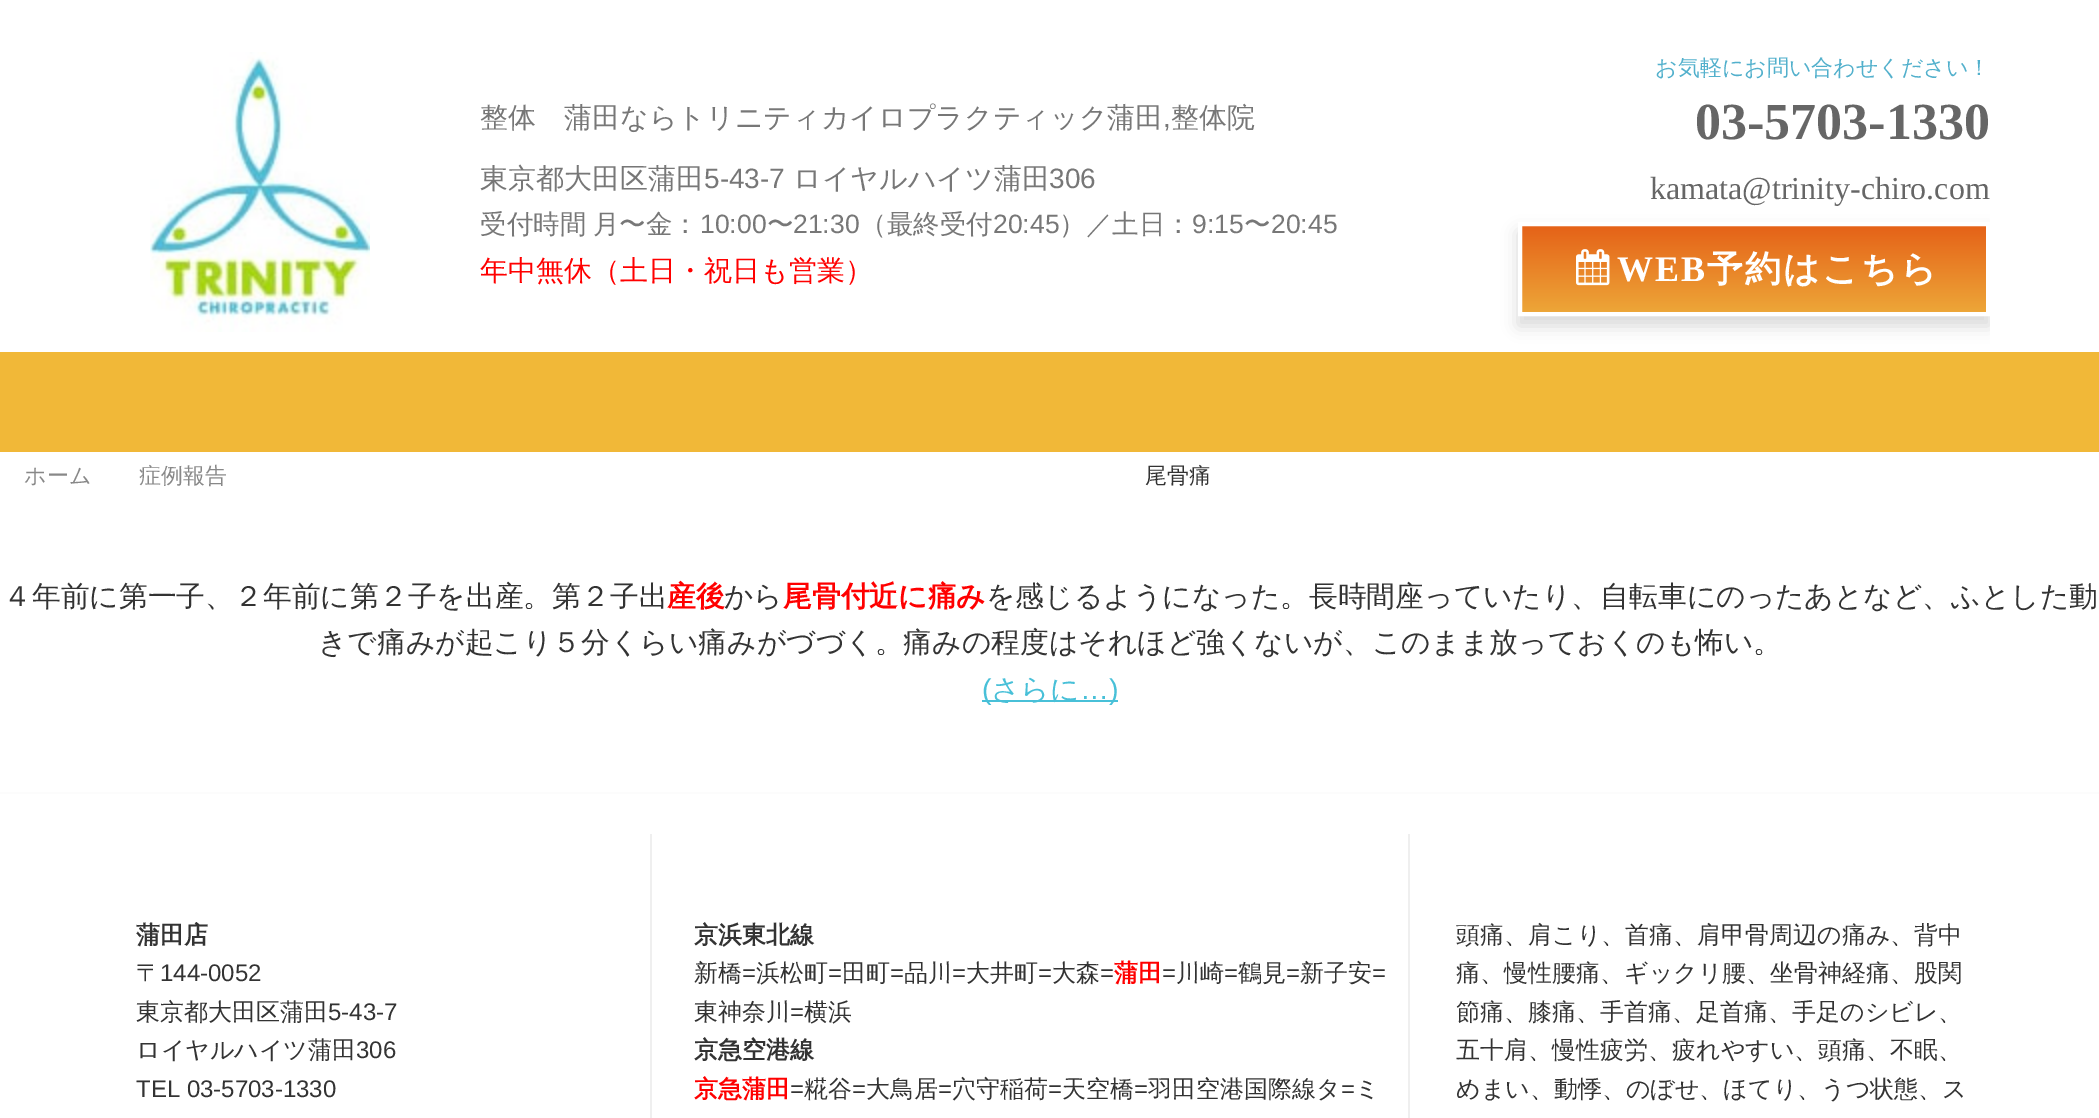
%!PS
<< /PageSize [2099 1118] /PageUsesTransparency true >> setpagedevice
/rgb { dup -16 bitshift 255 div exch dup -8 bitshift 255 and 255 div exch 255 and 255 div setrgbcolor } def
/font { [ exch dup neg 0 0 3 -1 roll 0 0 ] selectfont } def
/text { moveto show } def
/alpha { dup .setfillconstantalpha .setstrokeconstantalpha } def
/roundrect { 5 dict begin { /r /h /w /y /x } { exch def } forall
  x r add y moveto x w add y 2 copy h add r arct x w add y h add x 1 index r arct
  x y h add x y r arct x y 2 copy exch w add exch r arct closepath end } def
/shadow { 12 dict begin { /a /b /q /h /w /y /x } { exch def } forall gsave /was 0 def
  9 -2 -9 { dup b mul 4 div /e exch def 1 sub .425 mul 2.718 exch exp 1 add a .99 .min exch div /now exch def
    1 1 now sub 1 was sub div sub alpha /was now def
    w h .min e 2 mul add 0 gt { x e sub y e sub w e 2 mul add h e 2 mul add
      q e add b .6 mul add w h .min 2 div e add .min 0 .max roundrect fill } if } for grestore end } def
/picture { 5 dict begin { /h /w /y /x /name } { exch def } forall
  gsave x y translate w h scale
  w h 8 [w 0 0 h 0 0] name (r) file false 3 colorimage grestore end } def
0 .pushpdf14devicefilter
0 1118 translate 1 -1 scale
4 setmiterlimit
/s1 { /WenQuanYiZenHei-Medium 28 font 16#777777 rgb } def
/s2 { /LiberationSans-Regular 28 font 16#777777 rgb } def
/s3 { /WenQuanYiZenHei-Medium 22 font 16#52B0CC rgb } def
/s4 { /LiberationSerif-Bold 52 font 16#666666 rgb } def
/s5 { /LiberationSerif-Regular 32 font 16#666666 rgb } def
/s6 { /LiberationSans-Regular 26.5 font 16#777777 rgb } def
/s7 { /WenQuanYiZenHei-Medium 26.5 font 16#777777 rgb } def
/s8 { /WenQuanYiZenHei-Medium 28 font 16#FF0000 rgb } def
/s9 { /WenQuanYiZenHei-Medium 22 font 16#888888 rgb } def
/s10 { /WenQuanYiZenHei-Medium 22 font 16#333333 rgb } def
/s11 { /WenQuanYiZenHei-Medium 28.8 font 16#333333 rgb } def
/s12 { /WenQuanYiZenHei-Bold 28.8 font 16#FF0000 rgb } def
/s13 { /LiberationSans-Regular 28.8 font 16#48C0D8 rgb } def
/s14 { /WenQuanYiZenHei-Medium 28.8 font 16#48C0D8 rgb } def
/s15 { /WenQuanYiZenHei-Bold 24 font 16#333333 rgb } def
/s16 { /WenQuanYiZenHei-Medium 24 font 16#333333 rgb } def
/s17 { /LiberationSans-Regular 24 font 16#333333 rgb } def
/s18 { /WenQuanYiZenHei-Bold 24 font 16#FF0000 rgb } def
16#FFFFFF rgb
0 0 2099 1118 rectfill
(pic1.raw) 150 52 220 280 picture
s1
(整体　蒲田ならトリニティカイロプラクティック蒲田) 480 127 text
s2
(,) 1163 127 text
s1
(整体院) 1171 127 text
s3
(お気軽にお問い合わせください！) 1655 75 text
s4
(03-5703-1330) 1695 139 text
s5
(kamata@trinity-chiro.com) 1650 199 text
gsave
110 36 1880 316 rectclip
16#000000 rgb
1518 232 472 94 0 8 0.15 shadow
grestore
gsave 1522 226 moveto 1986 226 lineto 1986 312 lineto 1522 312 lineto closepath clip newpath
<< /ShadingType 2 /ColorSpace /DeviceRGB /Coords [1754 226 1754 312] /Extend [true true] /Function << /FunctionType 2 /Domain [0 1] /C0 [0.898 0.384 0.094] /C1 [0.929 0.651 0.22] /N 1 >> >> shfill grestore
16#FFFFFF rgb
4 setlinewidth
1520 224 468 90 rectstroke
(pic2.raw) 1576 249 34 37 picture
/LiberationSerif-Bold 36 font
1617 281 moveto 2 0 (WEB) ashow
/WenQuanYiZenHei-Bold 36 font
1707 281 moveto 2 0 (予約はこちら) ashow
s1
(東京都大田区蒲田) 480 188 text
s2
(5-43-7) 704 188 text
s1
(ロイヤルハイツ蒲田) 793 188 text
s2
(306) 1049 188 text
/WenQuanYiZenHei-Medium 26.5 font
480 233 moveto -1 0 32 (受付時間 月〜金：) widthshow
s6
(10:00) 700 233 text
s7
(〜) 767 233 text
s6
(21:30) 793 233 text
s7
(（最終受付) 860 233 text
s6
(20:45) 993 233 text
s7
(）／土日：) 1059 233 text
s6
(9:15) 1192 233 text
s7
(〜) 1244 233 text
s6
(20:45) 1271 233 text
s8
(年中無休（土日・祝日も営業）) 480 280 text
16#F1B838 rgb
0 352 2099 100 rectfill
s9
(ホーム) 24 483 text
(症例報告) 139 483 text
s10
(尾骨痛) 1145 483 text
s11
(４年前に第一子、２年前に第２子を出産。第２子出) 3 606 text
s12
(産後) 667 606 text
s11
(から) 724 606 text
s12
(尾骨付近に痛み) 783 606 text
s11
(を感じるようになった。長時間座っていたり、自転車にのったあとなど、ふとした動) 986 606 text
(きで痛みが起こり５分くらい痛みがづづく。痛みの程度はそれほど強くないが、このまま放っておくのも怖い。) 318 652 text
16#48C0D8 rgb
982 700 136 2 rectfill
s13
(\() 982 699 text
s14
(さらに) 991 699 text
s13
(…\)) 1080 699 text
16#FCFCFC rgb
0 792 2099 2 rectfill
16#EFEFEF rgb
650 834 2 284 rectfill
s15
(蒲田店) 136 943 text
s16
(〒) 136 981 text
s17
(144-0052) 160 981 text
s16
(東京都大田区蒲田) 136 1020 text
s17
(5-43-7) 328 1020 text
s16
(ロイヤルハイツ蒲田) 136 1058 text
s17
(306) 356 1058 text
(TEL 03-5703-1330) 136 1097 text
16#EFEFEF rgb
1408 834 2 284 rectfill
s15
(京浜東北線) 694 943 text
s16
(新橋) 694 981 text
s17
(=) 742 981 text
s16
(浜松町) 756 981 text
s17
(=) 828 981 text
s16
(田町) 842 981 text
s17
(=) 890 981 text
s16
(品川) 904 981 text
s17
(=) 952 981 text
s16
(大井町) 966 981 text
s17
(=) 1038 981 text
s16
(大森) 1052 981 text
s17
(=) 1100 981 text
s18
(蒲田) 1114 981 text
s17
(=) 1162 981 text
s16
(川崎) 1176 981 text
s17
(=) 1224 981 text
s16
(鶴見) 1238 981 text
s17
(=) 1286 981 text
s16
(新子安) 1300 981 text
s17
(=) 1372 981 text
s16
(東神奈川) 694 1020 text
s17
(=) 790 1020 text
s16
(横浜) 804 1020 text
s15
(京急空港線) 694 1058 text
s18
(京急蒲田) 694 1097 text
s17
(=) 790 1097 text
s16
(糀谷) 804 1097 text
s17
(=) 852 1097 text
s16
(大鳥居) 866 1097 text
s17
(=) 938 1097 text
s16
(穴守稲荷) 952 1097 text
s17
(=) 1048 1097 text
s16
(天空橋) 1062 1097 text
s17
(=) 1134 1097 text
s16
(羽田空港国際線タ) 1148 1097 text
s17
(=) 1341 1097 text
s16
(ミ) 1355 1097 text
(頭痛、肩こり、首痛、肩甲骨周辺の痛み、背中) 1456 943 text
(痛、慢性腰痛、ギックリ腰、坐骨神経痛、股関) 1456 981 text
(節痛、膝痛、手首痛、足首痛、手足のシビレ、) 1456 1020 text
(五十肩、慢性疲労、疲れやすい、頭痛、不眠、) 1456 1058 text
(めまい、動悸、のぼせ、ほてり、うつ状態、ス) 1456 1097 text
.poppdf14devicefilter showpage
